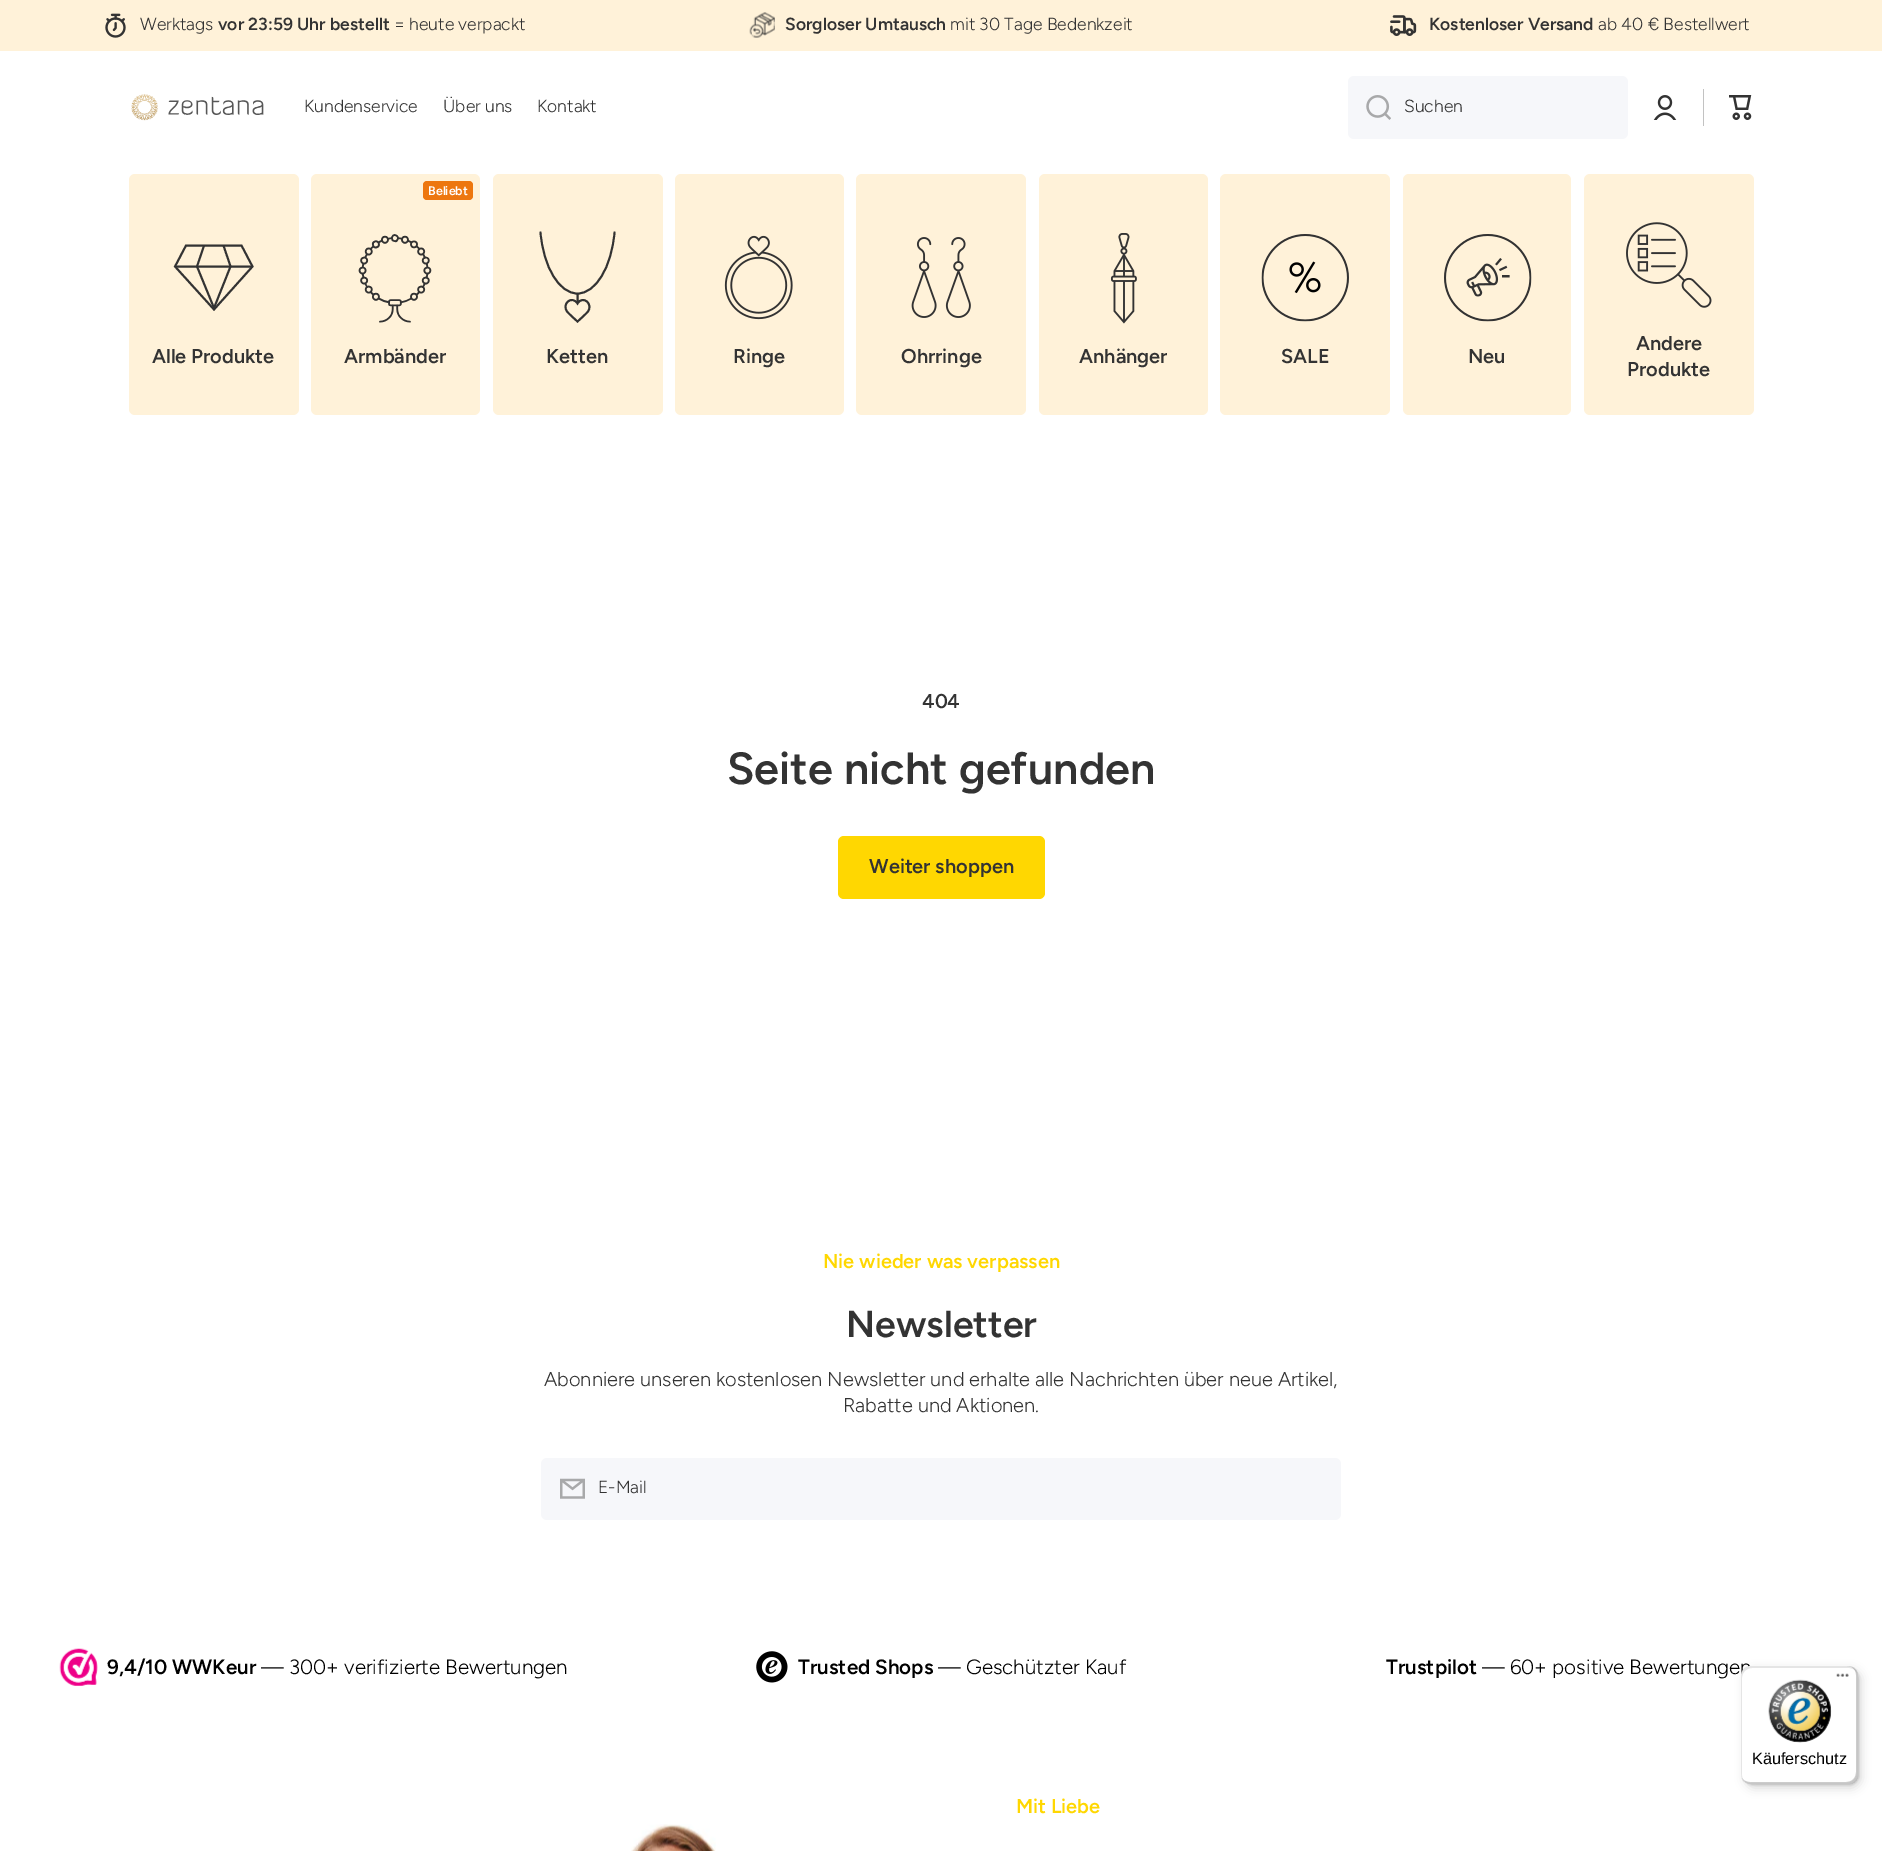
%!PS
<< /PageSize [1882 1851] /PageUsesTransparency true >> setpagedevice
/rgb { dup -16 bitshift 255 div exch dup -8 bitshift 255 and 255 div exch 255 and 255 div setrgbcolor } def
/font { [ exch dup neg 0 0 3 -1 roll 0 0 ] selectfont } def
/text { moveto show } def
/alpha { dup .setfillconstantalpha .setstrokeconstantalpha } def
/roundrect { 5 dict begin { /r /h /w /y /x } { exch def } forall
  x r add y moveto x w add y 2 copy h add r arct x w add y h add x 1 index r arct
  x y h add x y r arct x y 2 copy exch w add exch r arct closepath end } def
/shadow { 12 dict begin { /a /b /q /h /w /y /x } { exch def } forall gsave /was 0 def
  9 -2 -9 { dup b mul 4 div /e exch def 1 sub .425 mul 2.718 exch exp 1 add a .99 .min exch div /now exch def
    1 1 now sub 1 was sub div sub alpha /was now def
    w h .min e 2 mul add 0 gt { x e sub y e sub w e 2 mul add h e 2 mul add
      q e add b .6 mul add w h .min 2 div e add .min 0 .max roundrect fill } if } for grestore end } def
/picture { 5 dict begin { /h /w /y /x /name } { exch def } forall
  gsave x y translate w h scale
  w h 8 [w 0 0 h 0 0] name (r) file false 3 colorimage grestore end } def
0 .pushpdf14devicefilter
0 1851 translate 1 -1 scale
4 setmiterlimit
/s1 { /Figtree-Light 17.5 font 16#333333 rgb } def
/s2 { /Figtree-SemiBold 17.5 font 16#333333 rgb } def
/s3 { /Figtree-SemiBold 20 font 16#333333 rgb } def
/s4 { /Figtree-SemiBold 12.5 font 16#FFFFFF rgb } def
/s5 { /Figtree-SemiBold 45 font 16#333333 rgb } def
/s6 { /Figtree-SemiBold 20 font 16#FFD701 rgb } def
/s7 { /Figtree-SemiBold 37.5 font 16#333333 rgb } def
/s8 { /Figtree-Light 20 font 16#333333 rgb } def
/s9 { /Figtree-SemiBold 20.6 font 16#000000 rgb } def
/s10 { /Figtree-Light 20.6 font 16#000000 rgb } def
/s11 { /LiberationSans-Regular 16.25 font 16#000000 rgb } def
16#FFFFFF rgb
0 0 1882 1851 rectfill
16#FFF2D9 rgb
0 0 1882 51 rectfill
(pic1.raw) 105 13 21 25 picture
s1
(Werktags) 140 30 text
s2
(vor 23:59 Uhr bestellt) 218 30 text
s1
(= heute verpackt) 394 30 text
(pic2.raw) 749 12 26 26 picture
s2
(Sorgloser Umtausch) 785 30 text
s1
(mit 30 Tage Bedenkzeit) 950 30 text
(pic3.raw) 1390 15 27 21 picture
s2
(Kostenloser Versand) 1429 30 text
s1
(ab 40 € Bestellwert) 1598 30 text
(pic4.raw) 131 94 133 27 picture
(Kundenservice) 304 112 text
(Über uns) 443 112 text
(Kontakt) 537 112 text
16#F6F7FA rgb
1348 76 280 63 6 roundrect fill
(pic5.raw) 1366 95 25 25 picture
s1
(Suchen) 1404 112 text
(pic6.raw) 1653 95 24 25 picture
16#C2C2C2 rgb
1703 89 1 37 rectfill
(pic7.raw) 1729 95 23 25 picture
16#FFF2D9 rgb
129 174 170 241 6 roundrect fill
16#333333 rgb
1.9 setlinewidth
175 266.5 moveto 186 245.5 lineto 241.5 245.5 lineto 252.5 266.5 lineto 214 309.5 lineto closepath stroke
175 266.5 moveto 252.5 266.5 lineto stroke
197 266.5 moveto 204 245.5 lineto 230.5 266.5 moveto 223.5 245.5 lineto stroke
230.5 266.5 moveto 214 308 lineto 197 266.5 lineto stroke
s3
(Alle Produkte) 152 363 text
16#FFF2D9 rgb
311 174 169 241 6 roundrect fill
16#ED770F rgb
423 181 50 19 4 roundrect fill
s4
(Beliebt) 428 195 text
(pic8.raw) 358 234 74 89 picture
s3
(Armbänder) 344 363 text
16#FFF2D9 rgb
493 174 170 241 6 roundrect fill
16#333333 rgb
1 setlinecap
540.5 232.5 moveto 543.5 267 559 293.5 577.5 293.5 curveto 596 293.5 611.5 267 614.5 232.5 curveto stroke
0 setlinecap
577.5 303.5 moveto 571.5 294.5 561 304.5 567.5 312 curveto 568.5 313.5 577.5 321.5 577.5 321.5 curveto 577.5 321.5 586.5 313.5 587.5 312 curveto 594 304.5 583 294.5 577.5 303.5 curveto closepath 577.5 294 moveto 577.5 303.5 lineto stroke
(Ketten) 546 363 text
16#FFF2D9 rgb
675 174 169 241 6 roundrect fill
(pic9.raw) 724 235 69 85 picture
s3
(Ringe) 733 363 text
16#FFF2D9 rgb
856 174 170 241 6 roundrect fill
(pic10.raw) 911 237 60 81 picture
s3
(Ohrringe) 901 363 text
16#FFF2D9 rgb
1039 174 169 241 6 roundrect fill
(pic11.raw) 1110 233 27 91 picture
s3
(Anhänger) 1079 363 text
16#FFF2D9 rgb
1220 174 170 241 6 roundrect fill
(pic12.raw) 1261 234 88 88 picture
s3
(SALE) 1281 363 text
16#FFF2D9 rgb
1403 174 168 241 6 roundrect fill
(pic13.raw) 1444 234 88 88 picture
s3
(Neu) 1468 363 text
16#FFF2D9 rgb
1584 174 170 241 6 roundrect fill
(pic14.raw) 1626 222 86 86 picture
s3
(Andere) 1636 350 text
(Produkte) 1627 376 text
(404) 922 708 text
s5
(Seite nicht gefunden) 727 784 text
16#FFD701 rgb
838 836 207 63 6 roundrect fill
s3
(Weiter shoppen) 869 873 text
s6
(Nie wieder was verpassen) 823 1268 text
s7
(Newsletter) 846 1337 text
s8
(Abonniere unseren kostenlosen Newsletter und erhalte alle Nachrichten über neue Artikel,) 544 1386 text
(Rabatte und Aktionen.) 843 1412 text
16#F6F7FA rgb
541 1458 800 62 6 roundrect fill
(pic15.raw) 560 1478 25 21 picture
s1
(E-Mail) 598 1493 text
(pic16.raw) 59 1648 39 38 picture
s9
(9,4/10 WWKeur) 107 1674 text
s10
(— 300+ verifizierte Bewertungen) 261 1674 text
(pic17.raw) 756 1651 32 32 picture
s9
(Trusted Shops) 798 1674 text
s10
(— Geschützter Kauf) 938 1674 text
s9
(Trustpilot) 1386 1674 text
s10
(— 60+ positive Bewertungen) 1482 1674 text
1745 1670 116 118 10 5 0.15 shadow
1743 1668 116 117 10 1 0.15 shadow
16#FFFFFF rgb
1741 1666 117 118 10 roundrect fill
0.1 alpha
16#000000 rgb
1752 1668 moveto 1849 1668 lineto 1852 1668 1856 1670 1857 1673 curveto 1856 1669 1852 1666 1848 1666 curveto 1751 1666 lineto 1745 1666 1741 1670 1741 1676 curveto 1741 1774 lineto 1741 1777 1742 1780 1744 1782 curveto 1743 1780 1742 1778 1742 1775 curveto 1742 1678 lineto 1742 1672 1747 1668 1752 1668 curveto closepath fill
0.2 alpha
1742 1778 moveto 1744 1782 1747 1784 1751 1784 curveto 1848 1784 lineto 1854 1784 1858 1780 1858 1774 curveto 1858 1676 lineto 1858 1672 1856 1669 1852 1667 curveto 1855 1669 1856 1672 1856 1675 curveto 1856 1772 lineto 1856 1778 1852 1782 1846 1782 curveto 1750 1782 lineto 1747 1782 1744 1781 1742 1778 curveto closepath fill
16#323232 rgb
1743 1780 moveto 1745 1783 1748 1784 1751 1784 curveto 1848 1784 lineto 1854 1784 1858 1780 1858 1774 curveto 1858 1676 lineto 1858 1670 1854 1666 1848 1666 curveto 1847 1666 lineto 1852 1666 1857 1670 1857 1676 curveto 1857 1773 lineto 1857 1779 1852 1783 1847 1783 curveto 1750 1783 lineto 1748 1783 1745 1782 1743 1780 curveto closepath fill
0.3 alpha
16#FFFFFF rgb
1857 1676 moveto 1857 1670 1852 1666 1847 1666 curveto 1848 1666 lineto 1854 1666 1858 1670 1858 1676 curveto 1858 1774 lineto 1858 1780 1854 1784 1848 1784 curveto 1751 1784 lineto 1745 1784 1741 1780 1741 1774 curveto 1741 1773 lineto 1741 1779 1745 1783 1751 1783 curveto 1847 1783 lineto 1852 1783 1857 1779 1857 1773 curveto closepath fill
1 alpha
(pic18.raw) 1836 1673 13 4 picture
(pic19.raw) 1768 1679 64 64 picture
s11
(Käuferschutz) 1752 1764 text
s6
(Mit Liebe) 1016 1813 text
(pic20.raw) 631 1824 85 27 picture
.poppdf14devicefilter showpage
